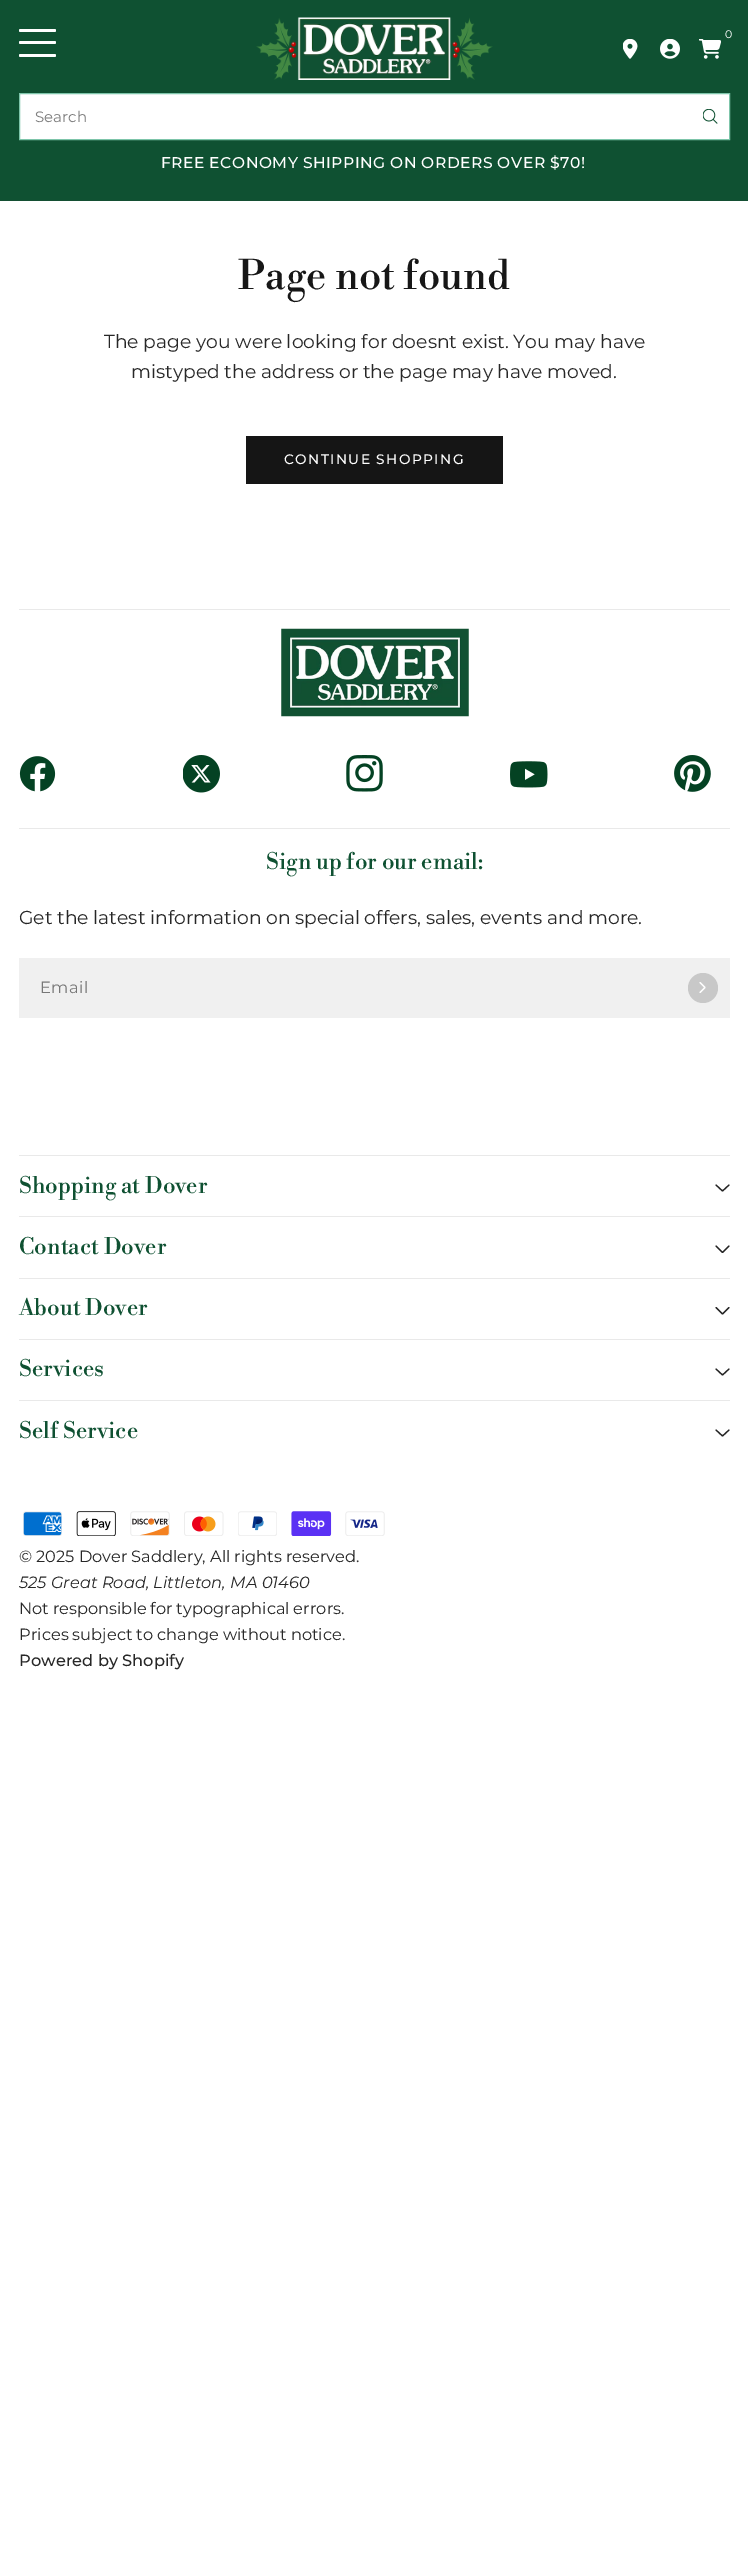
%!PS
<< /PageSize [748 2556] >> setpagedevice
/rgb { dup -16 bitshift 255 div exch dup -8 bitshift 255 and 255 div exch 255 and 255 div setrgbcolor } def
/font { [ exch dup neg 0 0 3 -1 roll 0 0 ] selectfont } def
/text { moveto show } def
/circle { newpath 0 360 arc closepath } def
/roundrect { 5 dict begin { /r /h /w /y /x } { exch def } forall
  x r add y moveto x w add y 2 copy h add r arct x w add y h add x 1 index r arct
  x y h add x y r arct x y 2 copy exch w add exch r arct closepath end } def
/picture { 5 dict begin { /h /w /y /x /name } { exch def } forall
  gsave x y translate w h scale
  w h 8 [w 0 0 h 0 0] name (r) file false 3 colorimage grestore end } def
0 2556 translate 1 -1 scale
4 setmiterlimit
/s1 { /Montserrat-Regular 15 font 16#7D7D7D rgb } def
/s2 { /LibreBodoni-Regular 40 font 16#171717 rgb } def
/s3 { /LibreBodoni-Regular 22.5 font 16#0F5132 rgb } def
/s4 { /Montserrat-Italic 16.25 font 16#272727 rgb } def
/s5 { /Montserrat-Medium 16.25 font 16#272727 rgb } def
16#FFFFFF rgb
0 0 748 2556 rectfill
16#0F5132 rgb
0 0 748 200 rectfill
16#144F33 rgb
0 200 748 1 rectfill
16#FFFFFF rgb
19 29 37 3 1.5 roundrect fill
19 41 37 3 1.5 roundrect fill
19 54 37 3 1.5 roundrect fill
(pic1.raw) 256 17 237 63 picture
/Montserrat-Regular 11 font
725 38 moveto 1 0 (0) ashow
(pic2.raw) 699 39 22 20 picture
(pic3.raw) 623 39 15 20 picture
(pic4.raw) 660 39 20 20 picture
19.5 93.5 moveto 729.5 93.5 lineto 729.5 139.5 lineto 19.5 139.5 lineto closepath gsave fill grestore
16#7DC5AA rgb
stroke
s1
(Search) 35 122 text
(pic5.raw) 703 109 15 15 picture
/Montserrat-Medium 15.55 font
16#FFFFFF rgb
161 168 moveto -0.5 0 32 0.55 0 (FREE ECONOMY SHIPPING ON ORDERS OVER $70!) awidthshow
s2
(Page not found) 238 289 text
/Montserrat-Regular 18.75 font
16#272727 rgb
104 348 moveto -0.25 0 32 (The page you were looking for doesnt exist. You may have) widthshow
131 378 moveto -0.25 0 32 (mistyped the address or the page may have moved.) widthshow
16#151515 rgb
246 436 257 48 rectfill
/Montserrat-Medium 13.75 font
16#FFFFFF rgb
284 464 moveto 1.4 0 (CONTINUE SHOPPING) ashow
16#E9E9E9 rgb
19 609 711 1 rectfill
(pic6.raw) 281 628 188 89 picture
19 828 711 1 rectfill
(pic7.raw) 19 756 37 36 picture
(pic8.raw) 183 755 37 38 picture
(pic9.raw) 346 755 37 37 picture
(pic10.raw) 510 761 38 27 picture
(pic11.raw) 674 755 37 37 picture
s3
(Sign up for our email:) 266 869 text
/Montserrat-Regular 18.75 font
16#272727 rgb
19 924 moveto -0.25 0 32 (Get the latest information on special offers, sales, events and more.) widthshow
16#F0F0F0 rgb
19 958 711 60 rectfill
/Montserrat-Regular 16.25 font
16#777777 rgb
40 993 moveto 0.5 0 (Email) ashow
16#C8C8C8 rgb
703 988 15 circle fill
16#FFFFFF rgb
1.2 setlinewidth
1 setlinecap
1 setlinejoin
700 982.5 moveto 705 987.5 lineto 700 992.5 lineto stroke
16#E9E9E9 rgb
19 1155 711 1 rectfill
s3
(Shopping at Dover) 19 1193 text
16#232323 rgb
729 1185 moveto 722.5 1191 lineto 716 1185 lineto stroke
16#E9E9E9 rgb
19 1216 711 1 rectfill
s3
(Contact Dover) 19 1254 text
16#232323 rgb
729 1246 moveto 722.5 1252.5 lineto 716 1246 lineto stroke
16#E9E9E9 rgb
19 1278 711 1 rectfill
s3
(About Dover) 19 1315 text
16#232323 rgb
729 1307.5 moveto 722.5 1314 lineto 716 1307.5 lineto stroke
16#E9E9E9 rgb
19 1339 711 1 rectfill
s3
(Services) 19 1376 text
16#232323 rgb
729 1369 moveto 722.5 1375 lineto 716 1369 lineto stroke
16#E9E9E9 rgb
19 1400 711 1 rectfill
s3
(Self Service) 19 1438 text
16#232323 rgb
729 1430 moveto 722.5 1436 lineto 716 1430 lineto stroke
(pic12.raw) 23 1511 39 25 picture
(pic13.raw) 76 1511 40 25 picture
(pic14.raw) 130 1511 40 25 picture
(pic15.raw) 184 1511 40 25 picture
(pic16.raw) 238 1511 39 25 picture
(pic17.raw) 291 1511 41 25 picture
(pic18.raw) 345 1511 40 25 picture
/Montserrat-Regular 16.25 font
16#272727 rgb
19 1562 moveto -0.25 0 32 (© 2025 Dover Saddlery, All rights reserved.) widthshow
s4
(525 Great Road, Littleton, MA 01460) 19 1588 text
/Montserrat-Regular 16.25 font
19 1614 moveto -0.5 0 32 (Not responsible for typographical errors.) widthshow
19 1640 moveto -0.25 0 32 (Prices subject to change without notice.) widthshow
s5
(Powered by Shopify) 19 1666 text
showpage
